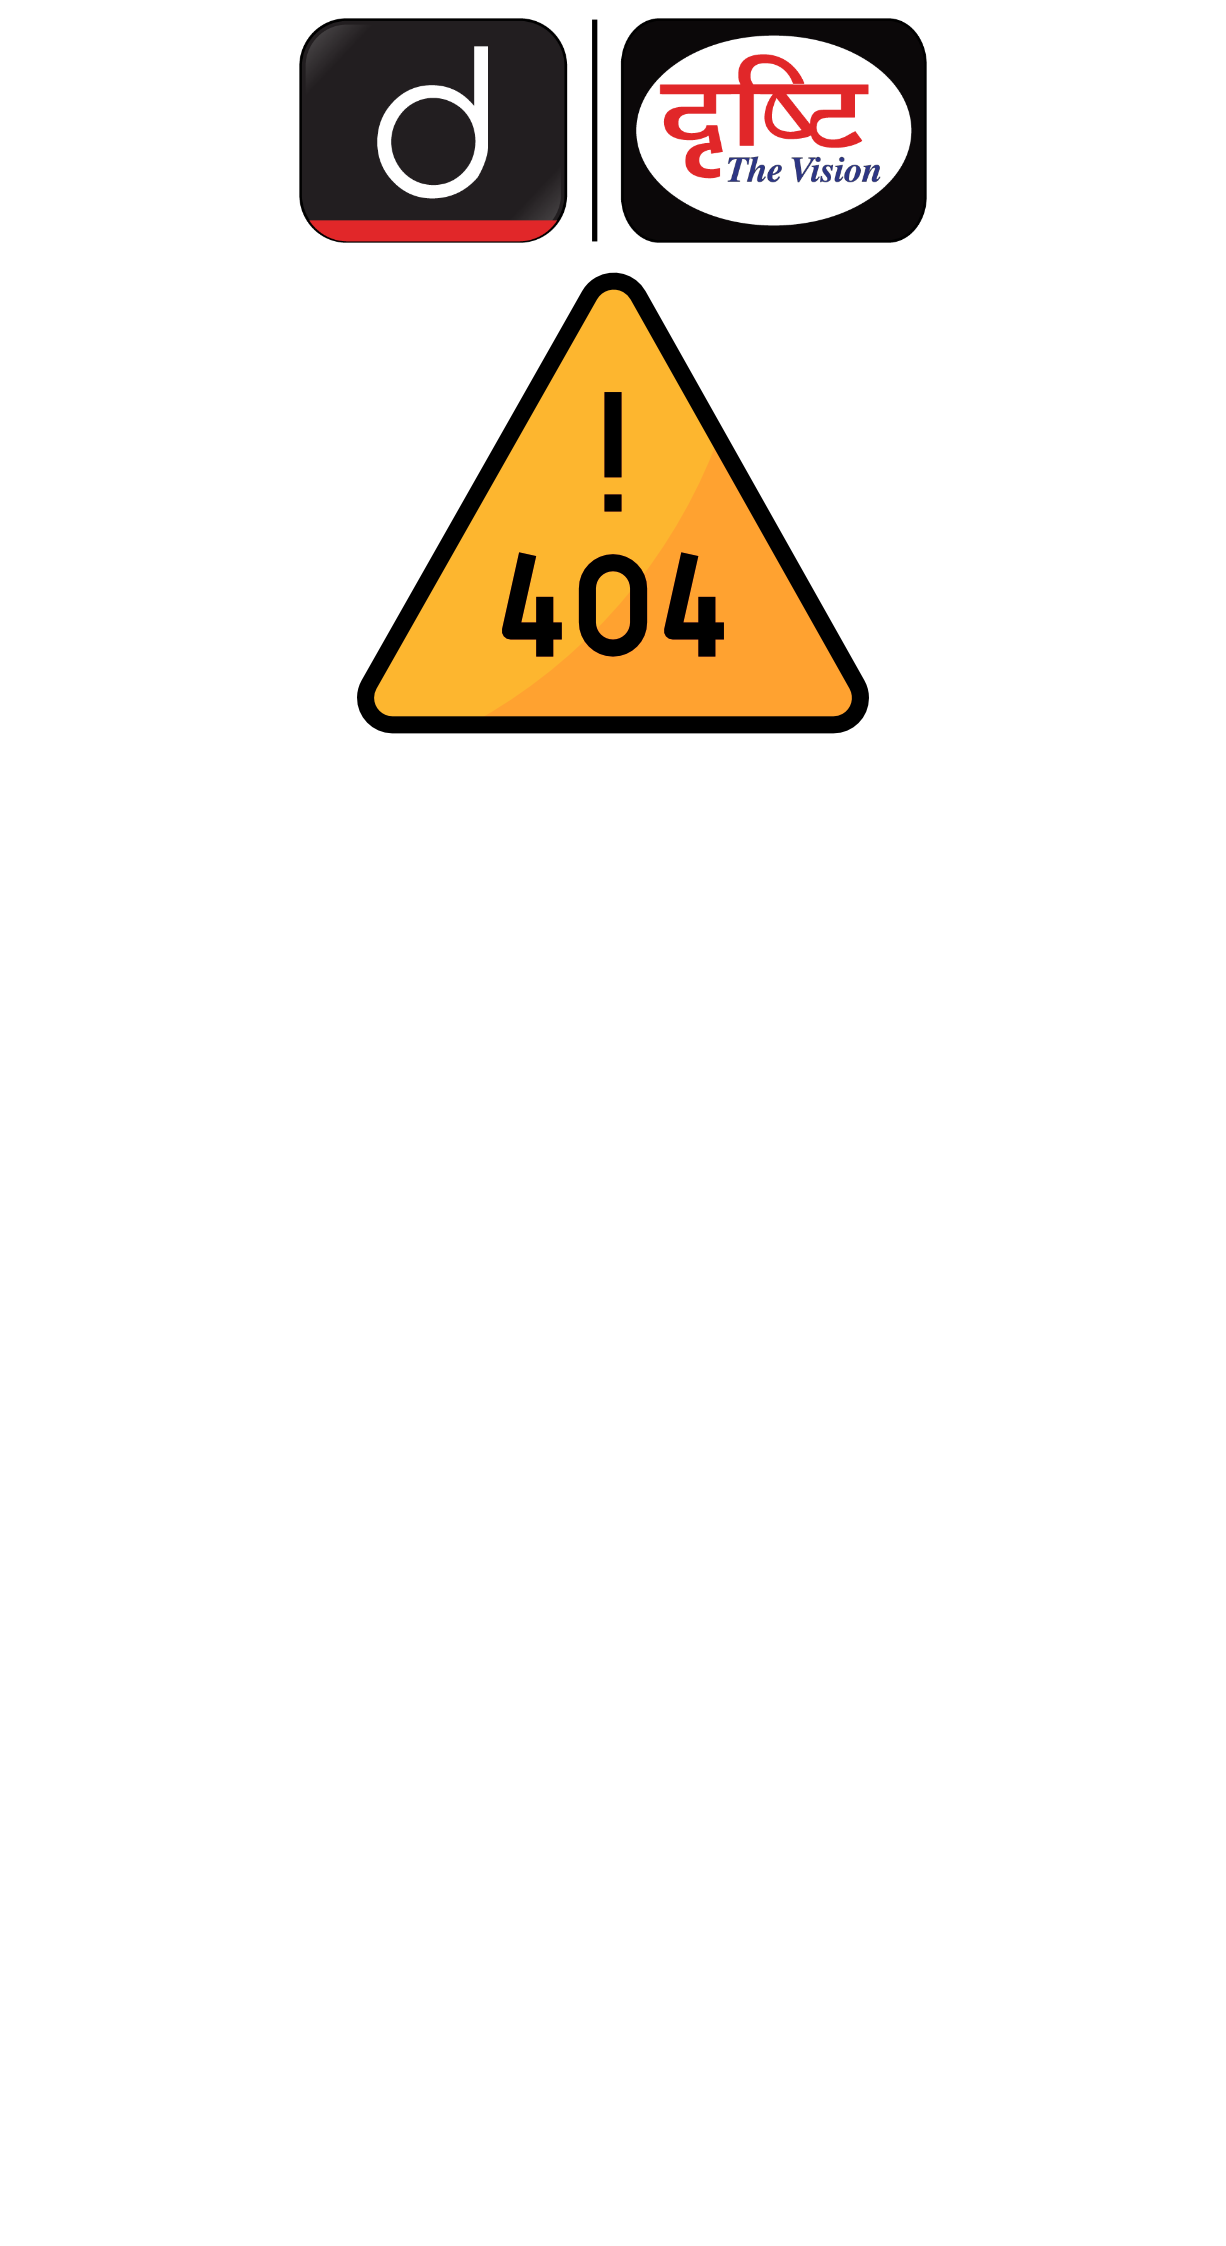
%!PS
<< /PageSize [1226 2246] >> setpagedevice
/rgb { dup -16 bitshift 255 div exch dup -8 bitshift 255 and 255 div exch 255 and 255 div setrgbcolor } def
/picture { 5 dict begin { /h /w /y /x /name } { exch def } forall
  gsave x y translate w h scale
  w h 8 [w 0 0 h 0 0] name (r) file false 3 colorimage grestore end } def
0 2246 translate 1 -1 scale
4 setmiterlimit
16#FFFFFF rgb
0 0 1226 2246 rectfill
(pic1.raw) 299 18 628 225 picture
(pic2.raw) 357 272 512 462 picture
showpage
